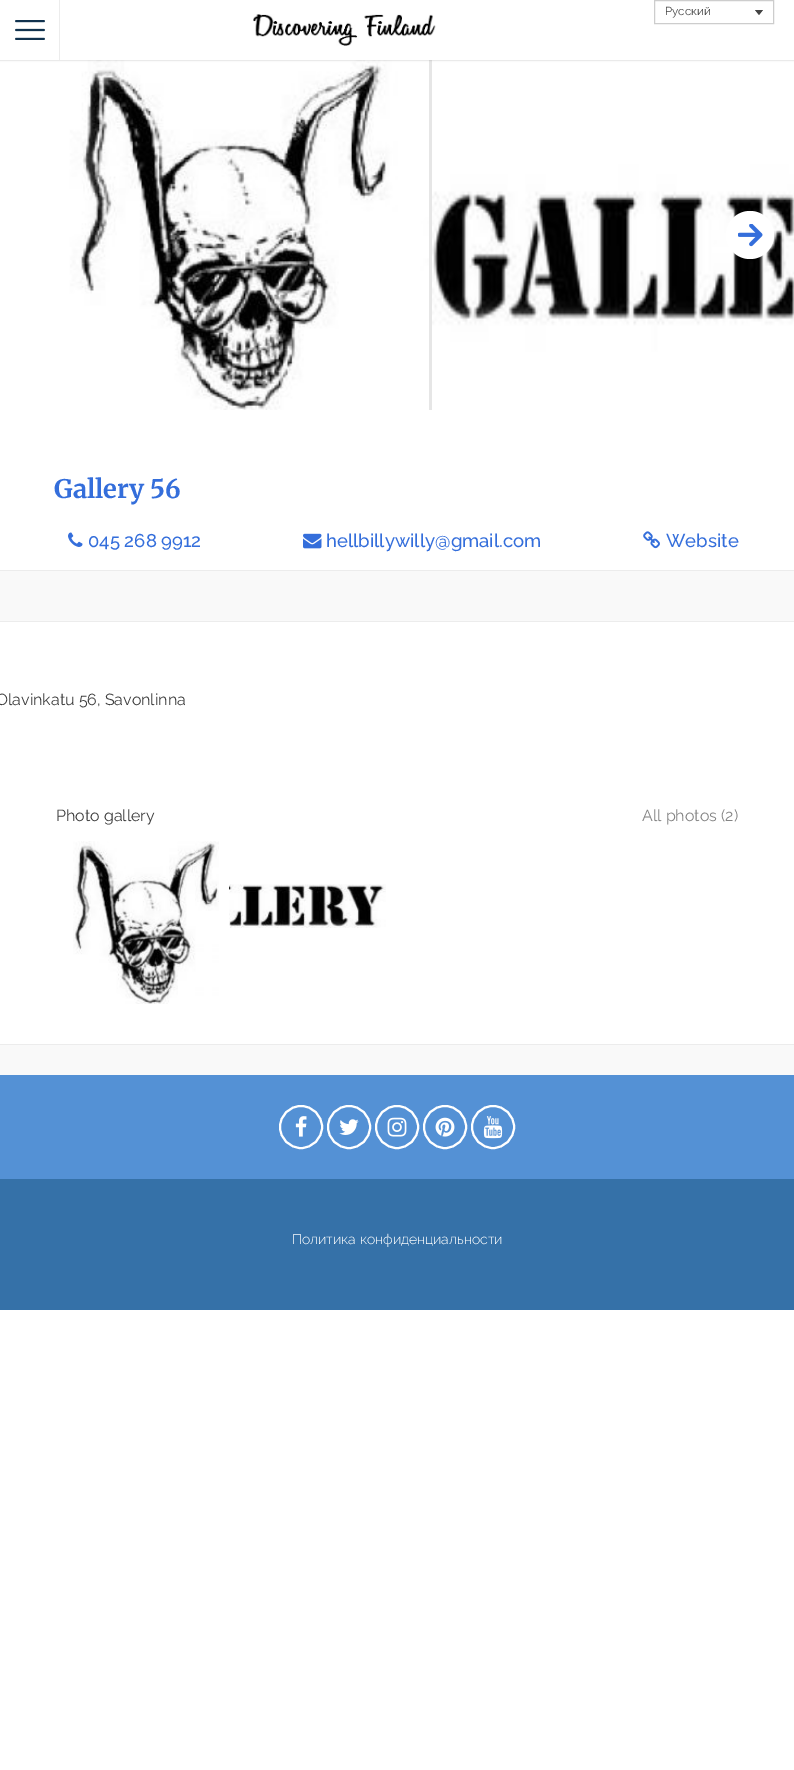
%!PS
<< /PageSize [794 1770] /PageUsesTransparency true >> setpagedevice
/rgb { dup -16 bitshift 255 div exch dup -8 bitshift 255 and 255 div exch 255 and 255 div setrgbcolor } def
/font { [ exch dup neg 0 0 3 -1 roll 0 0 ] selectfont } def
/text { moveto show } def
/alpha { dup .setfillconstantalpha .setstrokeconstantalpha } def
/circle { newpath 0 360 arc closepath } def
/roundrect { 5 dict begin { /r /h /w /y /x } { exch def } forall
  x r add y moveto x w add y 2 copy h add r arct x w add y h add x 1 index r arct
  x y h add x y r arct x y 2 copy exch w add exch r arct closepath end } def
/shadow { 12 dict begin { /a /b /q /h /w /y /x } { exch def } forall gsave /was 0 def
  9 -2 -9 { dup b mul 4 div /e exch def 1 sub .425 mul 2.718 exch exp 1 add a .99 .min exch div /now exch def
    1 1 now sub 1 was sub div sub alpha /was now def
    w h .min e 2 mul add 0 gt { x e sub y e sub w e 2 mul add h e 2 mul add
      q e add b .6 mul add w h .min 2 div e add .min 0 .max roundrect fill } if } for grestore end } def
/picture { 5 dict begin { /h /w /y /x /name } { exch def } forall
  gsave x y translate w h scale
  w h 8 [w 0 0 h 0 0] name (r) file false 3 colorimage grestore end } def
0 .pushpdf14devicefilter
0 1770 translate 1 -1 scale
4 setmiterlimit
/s1 { /Raleway-Regular 11.5 font 16#444444 rgb } def
/s2 { /Merriweather-Bold 25.5 font 16#346EDB rgb } def
/s3 { /Raleway-Medium 18.5 font 16#346EDB rgb } def
/s4 { /Raleway-Regular 16 font 16#3D3D3D rgb } def
/s5 { /Raleway-Regular 16 font 16#848484 rgb } def
/s6 { /Raleway-Light 14 font 16#FFFFFF rgb } def
16#FFFFFF rgb
0 0 794 1770 rectfill
16#F9F9F9 rgb
0 571 794 504 rectfill
16#E6E6E6 rgb
429 60 3 350 rectfill
(pic3.raw) 0 60 429 350 picture
(pic4.raw) 432 60 362 350 picture
16#000000 rgb
0 0 794 60 0 1 0.25 shadow
16#FFFFFF rgb
0 0 794 60 rectfill
16#ECECEC rgb
59 0 1 60 rectfill
(pic1.raw) 15 20 30 20 picture
16#CDCDCD rgb
654.5 0.5 119 23 rectstroke
s1
(Русский) 665 15 text
755 10 moveto 763 10 lineto 759 15 lineto closepath fill
(pic2.raw) 253 14 183 32 picture
16#FFFFFF rgb
750 235 24 circle fill
(pic5.raw) 738 224 25 23 picture
s2
(Gallery 56) 54 498 text
(pic6.raw) 68 532 15 15 picture
s3
(045 268 9912) 88 547 text
(pic7.raw) 303 533 19 16 picture
(hellbillywilly@gmail.com) 326 547 text
(pic8.raw) 643 531 17 18 picture
(Website) 666 547 text
16#ECECEC rgb
0 570 794 1 rectfill
16#FFFFFF rgb
0 622 794 422 rectfill
16#ECECEC rgb
0 621 794 1 rectfill
0 1044 794 1 rectfill
s4
(Olavinkatu 56, Savonlinna) -4 705 text
(Photo gallery) 56 821 text
s5
(All photos \(2\)) 642 821 text
(pic9.raw) 73 841 146 163 picture
(pic10.raw) 229 884 157 44 picture
16#3571A8 rgb
0 1179 794 131 rectfill
16#5491D5 rgb
0 1075 794 104 rectfill
16#FFFFFF rgb
2 setlinewidth
301 1127 21 circle stroke
(pic11.raw) 295 1116 12 21 picture
349 1127 21 circle stroke
(pic12.raw) 339 1119 20 16 picture
397 1127 21 circle stroke
(pic13.raw) 387 1117 20 20 picture
445 1127 21 circle stroke
(pic14.raw) 435 1117 20 20 picture
493 1127 21 circle stroke
(pic15.raw) 483 1116 20 23 picture
s6
(Политика конфиденциальности) 292 1244 text
.poppdf14devicefilter showpage
